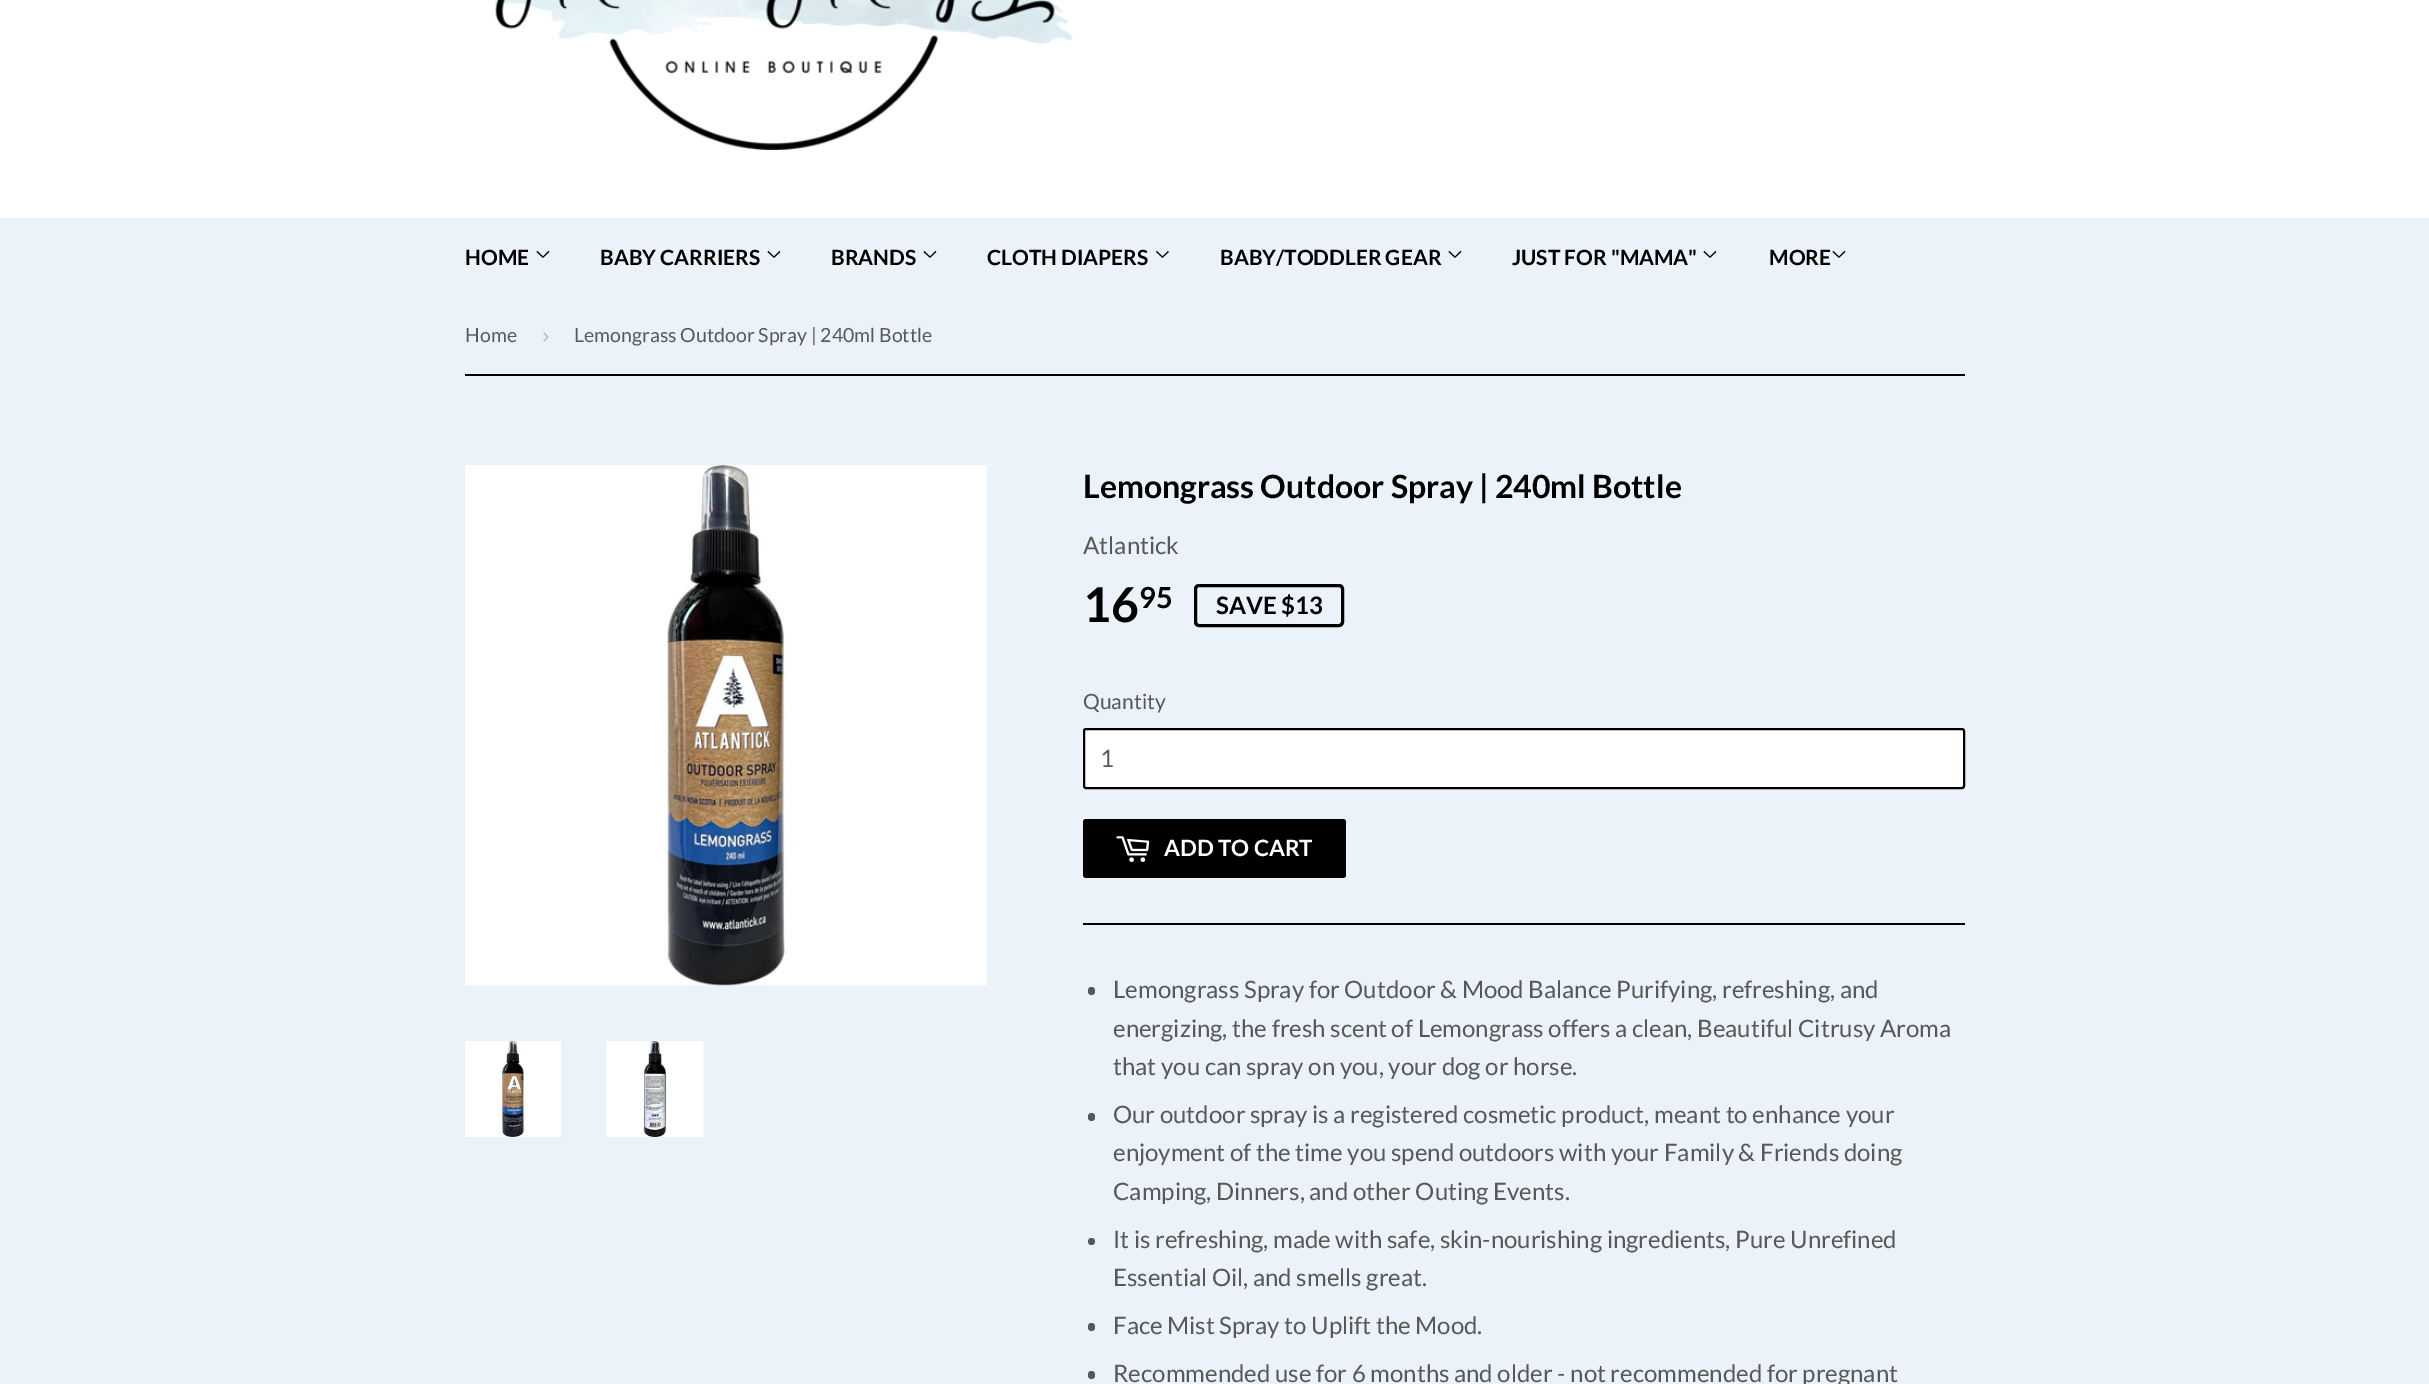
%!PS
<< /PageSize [2429 1384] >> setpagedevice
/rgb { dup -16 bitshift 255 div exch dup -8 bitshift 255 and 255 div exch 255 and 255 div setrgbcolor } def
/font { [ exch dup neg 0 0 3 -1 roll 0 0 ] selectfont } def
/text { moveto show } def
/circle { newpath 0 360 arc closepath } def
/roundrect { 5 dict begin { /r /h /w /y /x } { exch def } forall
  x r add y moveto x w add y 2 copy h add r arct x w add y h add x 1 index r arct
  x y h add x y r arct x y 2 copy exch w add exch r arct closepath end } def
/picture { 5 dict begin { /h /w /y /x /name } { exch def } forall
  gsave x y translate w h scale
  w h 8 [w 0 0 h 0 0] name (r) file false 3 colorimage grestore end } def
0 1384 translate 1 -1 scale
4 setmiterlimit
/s1 { /Lato-Bold 21 font 16#000000 rgb } def
/s2 { /Lato-Regular 19.5 font 16#585858 rgb } def
/s3 { /LiberationSans-Regular 22.5 font 16#BBBBBB rgb } def
/s4 { /Lato-Bold 32 font 16#000000 rgb } def
/s5 { /Lato-Regular 24 font 16#585858 rgb } def
/s6 { /Lato-Bold 48 font 16#000000 rgb } def
/s7 { /Lato-Bold 29 font 16#000000 rgb } def
/s8 { /Lato-Bold 24 font 16#000000 rgb } def
/s9 { /Lato-Regular 21 font 16#585858 rgb } def
/s10 { /Lato-Bold 22.5 font 16#FFFFFF rgb } def
16#EBF2F9 rgb
0 0 2429 1384 rectfill
16#FFFFFF rgb
0 0 2429 218 rectfill
(pic1.raw) 493 0 580 150 picture
s1
(HOME) 465 265 text
(pic2.raw) 536 250 14 8 picture
(BABY CARRIERS) 600 265 text
(pic2.raw) 767 250 14 8 picture
(BRANDS) 831 265 text
(pic2.raw) 923 250 14 8 picture
(CLOTH DIAPERS) 987 265 text
(pic3.raw) 1156 250 13 8 picture
(BABY/TODDLER GEAR) 1220 265 text
(pic2.raw) 1448 250 14 8 picture
(JUST FOR "MAMA") 1512 265 text
(pic2.raw) 1703 250 14 8 picture
(MORE) 1769 265 text
(pic2.raw) 1832 250 14 8 picture
465 374 1500 2 rectfill
s2
(Home) 465 342 text
s3
(›) 542 343 text
s2
(Lemongrass Outdoor Spray | 240ml Bottle) 574 342 text
(pic4.raw) 465 465 522 521 picture
(pic5.raw) 465 1041 96 96 picture
(pic6.raw) 606 1041 98 96 picture
s4
(Lemongrass Outdoor Spray | 240ml Bottle) 1083 498 text
s5
(Atlantick) 1083 554 text
s6
(16) 1083 622 text
s7
(95) 1139 608 text
3 setlinewidth
1195.5 585.5 147 40 3.5 roundrect stroke
s8
(SAVE $13) 1216 614 text
s9
(Quantity) 1083 709 text
16#FFFFFF rgb
1084 729 880 59 2 roundrect gsave fill grestore
16#000000 rgb
2 setlinewidth
stroke
s5
(1) 1100 767 text
16#000000 rgb
1083 819 263 59 3 roundrect fill
(pic7.raw) 1116 836 34 26 picture
s10
(ADD TO CART) 1164 856 text
16#000000 rgb
1083 923 882 2 rectfill
16#585858 rgb
1088 987 7 8 3.5 roundrect fill
s5
(Lemongrass Spray for Outdoor & Mood Balance Purifying, refreshing, and) 1113 998 text
(energizing, the fresh scent of Lemongrass offers a clean, Beautiful Citrusy Aroma) 1113 1037 text
(that you can spray on you, your dog or horse.) 1113 1075 text
1088 1113 7 8 3.5 roundrect fill
(Our outdoor spray is a registered cosmetic product, meant to enhance your) 1113 1123 text
(enjoyment of the time you spend outdoors with your Family & Friends doing) 1113 1161 text
(Camping, Dinners, and other Outing Events.) 1113 1200 text
1091.5 1241.5 3.5 circle fill
(It is refreshing, made with safe, skin-nourishing ingredients, Pure Unrefined) 1113 1248 text
(Essential Oil, and smells great.) 1113 1286 text
1088 1323 7 8 3.5 roundrect fill
(Face Mist Spray to Uplift the Mood.) 1113 1334 text
1088 1371 7 8 3.5 roundrect fill
(Recommended use for 6 months and older - not recommended for pregnant) 1113 1382 text
showpage
